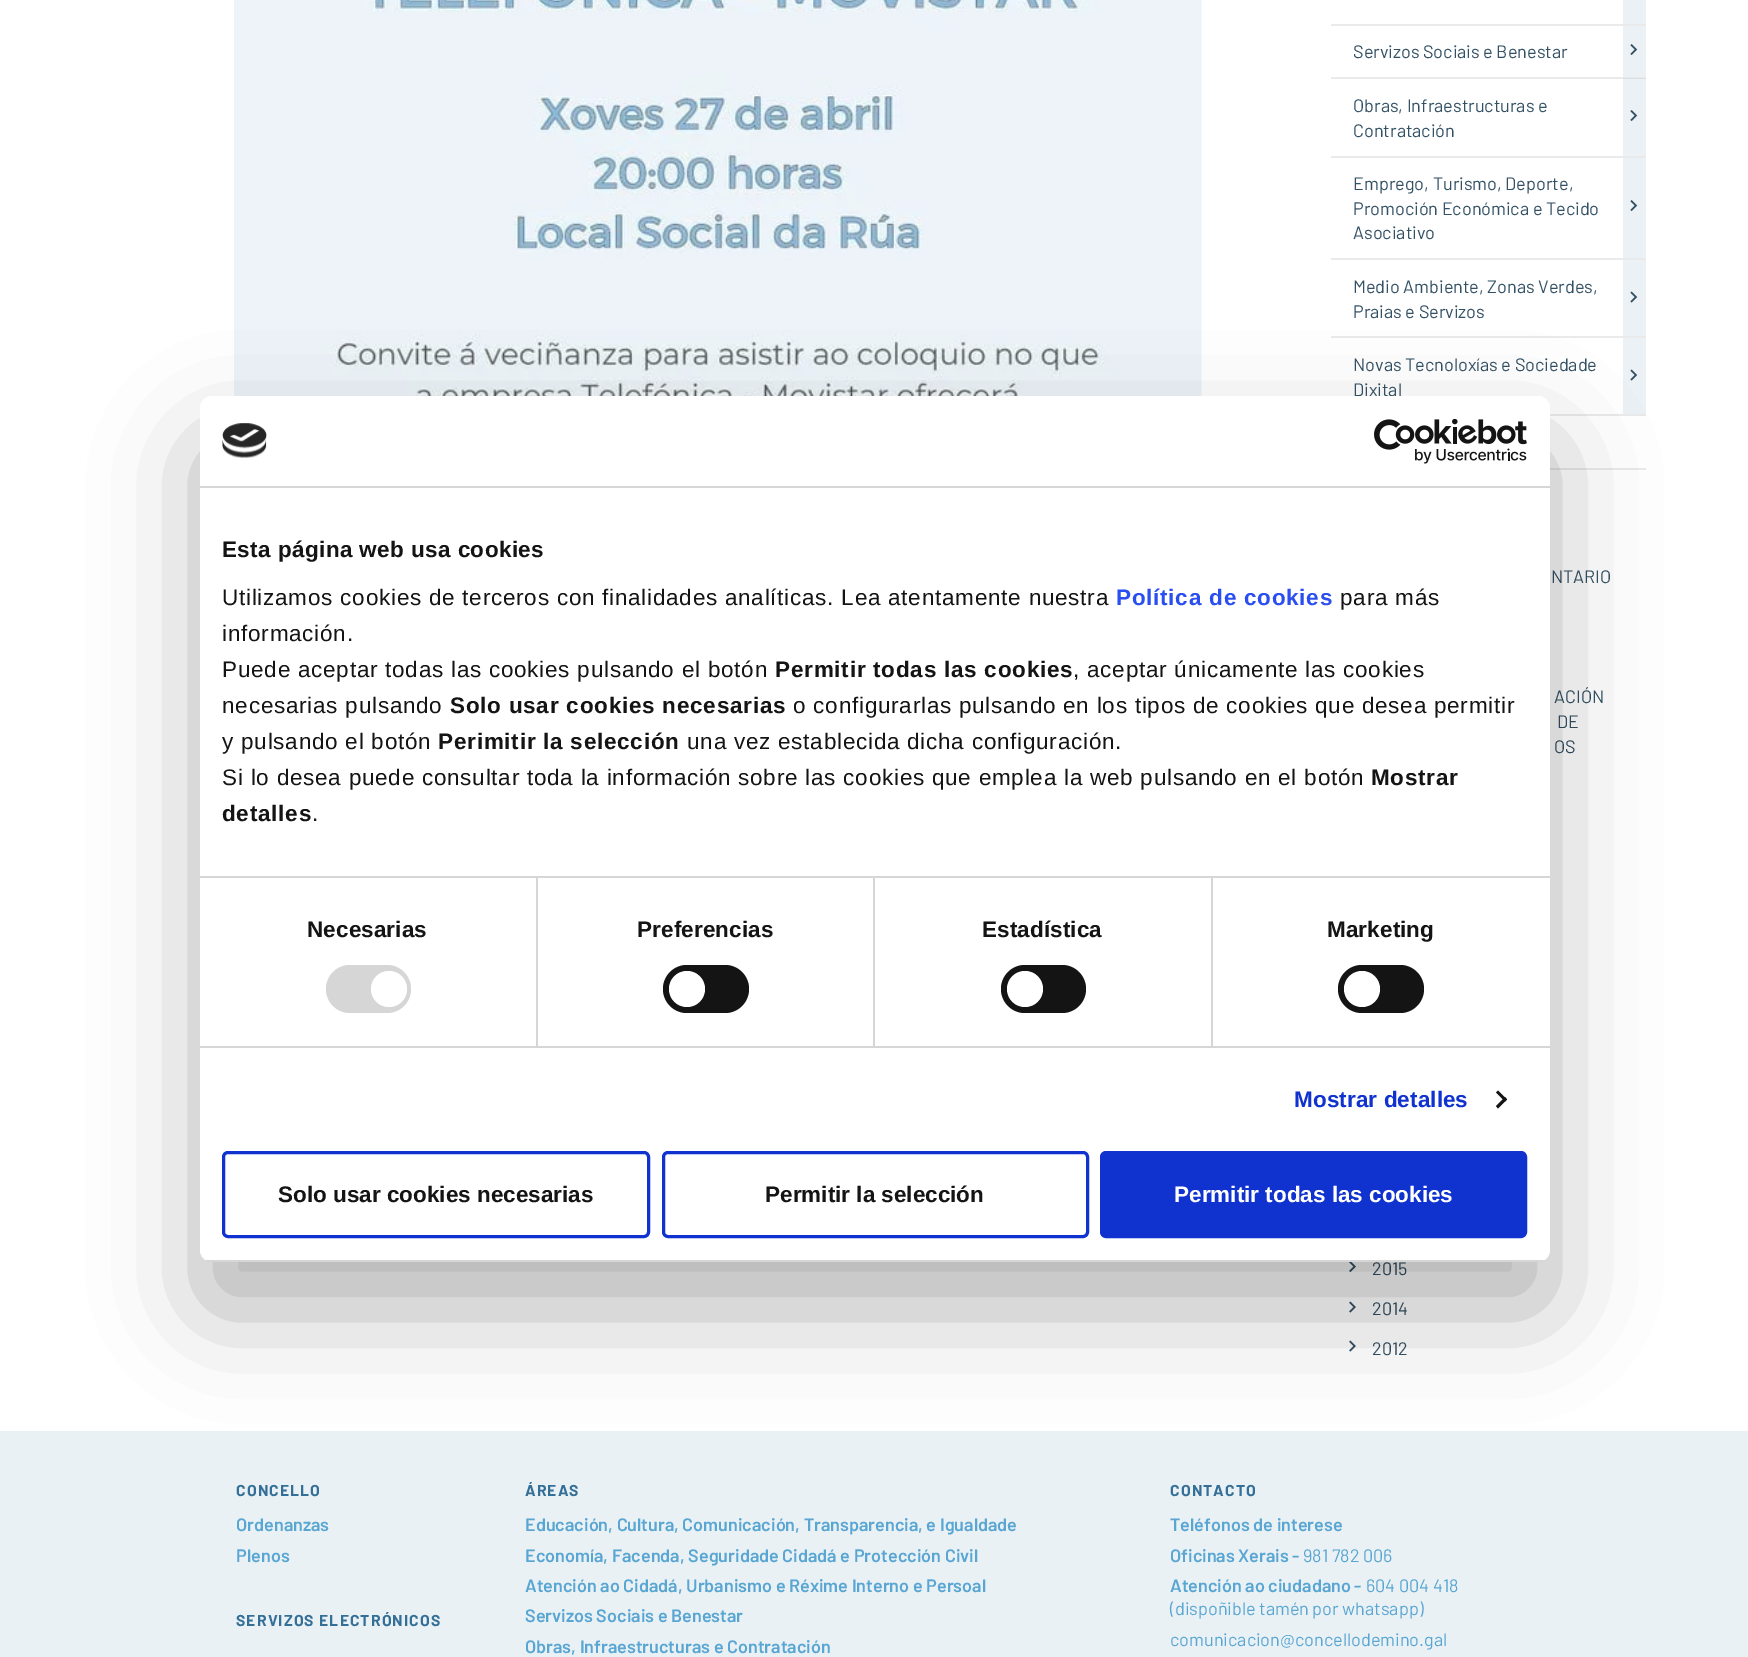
%!PS
<< /PageSize [1748 1657] /PageUsesTransparency true >> setpagedevice
/rgb { dup -16 bitshift 255 div exch dup -8 bitshift 255 and 255 div exch 255 and 255 div setrgbcolor } def
/font { [ exch dup neg 0 0 3 -1 roll 0 0 ] selectfont } def
/text { moveto show } def
/alpha { dup .setfillconstantalpha .setstrokeconstantalpha } def
/circle { newpath 0 360 arc closepath } def
/roundrect { 5 dict begin { /r /h /w /y /x } { exch def } forall
  x r add y moveto x w add y 2 copy h add r arct x w add y h add x 1 index r arct
  x y h add x y r arct x y 2 copy exch w add exch r arct closepath end } def
/shadow { 12 dict begin { /a /b /q /h /w /y /x } { exch def } forall gsave /was 0 def
  9 -2 -9 { dup b mul 4 div /e exch def 1 sub .425 mul 2.718 exch exp 1 add a .99 .min exch div /now exch def
    1 1 now sub 1 was sub div sub alpha /was now def
    w h .min e 2 mul add 0 gt { x e sub y e sub w e 2 mul add h e 2 mul add
      q e add b .6 mul add w h .min 2 div e add .min 0 .max roundrect fill } if } for grestore end } def
/picture { 5 dict begin { /h /w /y /x /name } { exch def } forall
  gsave x y translate w h scale
  w h 8 [w 0 0 h 0 0] name (r) file false 3 colorimage grestore end } def
0 .pushpdf14devicefilter
0 1657 translate 1 -1 scale
4 setmiterlimit
/s1 { /Barlow-Regular 18 font 16#335164 rgb } def
/s2 { /LiberationSans-Bold 22.5 font 16#141414 rgb } def
/s3 { /LiberationSans-Bold 22.5 font 16#FFFFFF rgb } def
/s4 { /Barlow-SemiBold 18 font 16#59A6D3 rgb } def
/s5 { /Barlow-Regular 18 font 16#59A6D3 rgb } def
16#FFFFFF rgb
0 0 1748 1657 rectfill
16#EBF1F5 rgb
1623 79 23 77 rectfill
(pic1.raw) 234 0 968 396 picture
16#EAEAEA rgb
1331 24 315 2 rectfill
16#EBF1F5 rgb
1623 0 23 24 rectfill
16#EAEAEA rgb
1331 77 315 2 rectfill
16#D8DEE2 rgb
1623 78 23 1 rectfill
s1
(Servizos Sociais e Benestar) 1353 58 text
16#EBF1F5 rgb
1623 26 23 51 rectfill
(pic2.raw) 1630 44 8 12 picture
16#EAEAEA rgb
1331 156 315 2 rectfill
s1
(Obras, Infraestructuras e) 1353 112 text
(pic3.raw) 1630 110 8 12 picture
(Contratación) 1353 137 text
16#EAEAEA rgb
1331 258 315 2 rectfill
s1
(Emprego, Turismo, Deporte,) 1353 190 text
16#EBF1F5 rgb
1623 158 23 100 rectfill
(pic2.raw) 1630 200 8 12 picture
s1
(Promoción Económica e Tecido) 1353 215 text
(Asociativo) 1353 239 text
16#EAEAEA rgb
1331 336 315 2 rectfill
s1
(Medio Ambiente, Zonas Verdes,) 1353 293 text
16#EBF1F5 rgb
1623 260 23 76 rectfill
(pic4.raw) 1630 291 8 12 picture
s1
(Praias e Servizos) 1353 318 text
16#EAEAEA rgb
1550 414 96 2 rectfill
s1
(Novas Tecnoloxías e Sociedade) 1353 371 text
16#EBF1F5 rgb
1623 338 23 76 rectfill
(pic4.raw) 1630 369 8 12 picture
s1
(Dixital) 1353 396 text
16#EAEAEA rgb
1550 468 96 2 rectfill
s1
(NTARIO) 1551 583 text
(ACIÓN) 1554 703 text
(DE) 1557 728 text
(OS) 1554 753 text
(pic5.raw) 1349 1262 7 11 picture
(2015) 1372 1275 text
(pic6.raw) 1349 1301 7 12 picture
(2014) 1372 1315 text
(pic6.raw) 1349 1340 7 12 picture
(2012) 1372 1355 text
16#EAF1F5 rgb
0 1431 1748 226 rectfill
16#000000 rgb
200 444 1350 866 12 51 0.3 shadow
16#FFFFFF rgb
200 396 1350 866 12 roundrect fill
16#D6D6D6 rgb
200 486 1350 2 rectfill
(pic7.raw) 222 423 45 35 picture
(pic8.raw) 1374 419 153 45 picture
200 876 1350 2 rectfill
/LiberationSans-Bold 22.5 font
16#141414 rgb
222 557 moveto 0.4 0 (Esta página web usa cookies) ashow
/LiberationSans-Regular 22.5 font
222 605 moveto 0.75 0 (Utilizamos cookies de terceros con finalidades analíticas. Lea atentamente nuestra) ashow
/LiberationSans-Bold 22.5 font
16#2A4EEF rgb
1116 605 moveto 0.75 0 (Política de cookies) ashow
/LiberationSans-Regular 22.5 font
16#141414 rgb
1340 605 moveto 0.75 0 (para más) ashow
222 641 moveto 0.75 0 (información.) ashow
222 677 moveto 0.75 0 (Puede aceptar todas las cookies pulsando el botón) ashow
/LiberationSans-Bold 22.5 font
775 677 moveto 0.75 0 (Permitir todas las cookies) ashow
/LiberationSans-Regular 22.5 font
1073 677 moveto 0.75 0 (, aceptar únicamente las cookies) ashow
222 713 moveto 0.75 0 (necesarias pulsando) ashow
/LiberationSans-Bold 22.5 font
450 713 moveto 0.75 0 (Solo usar cookies necesarias) ashow
/LiberationSans-Regular 22.5 font
793 713 moveto 0.75 0 (o configurarlas pulsando en los tipos de cookies que desea permitir) ashow
222 749 moveto 0.75 0 (y pulsando el botón) ashow
/LiberationSans-Bold 22.5 font
438 749 moveto 0.75 0 (Perimitir la selección) ashow
/LiberationSans-Regular 22.5 font
687 749 moveto 0.75 0 (una vez establecida dicha configuración.) ashow
222 785 moveto 0.75 0 (Si lo desea puede consultar toda la información sobre las cookies que emplea la web pulsando en el botón) ashow
/LiberationSans-Bold 22.5 font
1371 785 moveto 0.75 0 (Mostrar) ashow
222 821 moveto 0.75 0 (detalles) ashow
/LiberationSans-Regular 22.5 font
312 821 moveto 0.75 0 (.) ashow
16#D6D6D6 rgb
200 1046 1350 2 rectfill
536 878 2 168 rectfill
/LiberationSans-Bold 22.5 font
16#141414 rgb
307 937 moveto 0.1 0 (Necesarias) ashow
16#D6D6D6 rgb
326 965 85 48 24 roundrect fill
16#FFFFFF rgb
389 989 18 circle fill
16#D6D6D6 rgb
873 878 2 168 rectfill
16#141414 rgb
637 937 moveto 0.1 0 (Preferencias) ashow
663 965 86 48 24 roundrect fill
16#FFFFFF rgb
687 989 18 circle fill
16#D6D6D6 rgb
1211 878 2 168 rectfill
16#141414 rgb
982 937 moveto 0.1 0 (Estadística) ashow
1001 965 85 48 24 roundrect fill
16#FFFFFF rgb
1025 989 18 circle fill
16#141414 rgb
1327 937 moveto 0.1 0 (Marketing) ashow
1338 965 86 48 24 roundrect fill
16#FFFFFF rgb
1362 989 18 circle fill
16#1032CF rgb
1294 1107 moveto 0.1 0 (Mostrar detalles) ashow
16#141414 rgb
1498 1090.5 moveto 1507 1099.5 lineto 1505 1101.5 lineto 1496 1092.5 lineto closepath fill
1505 1097 moveto 1507 1099.5 lineto 1498 1108.5 lineto 1496 1106 lineto closepath fill
gsave
200 396 1350 866 12 roundrect clip newpath
16#D6D6D6 rgb
200 1260 1350 2 rectfill
grestore
16#1032CF rgb
3 setlinewidth
223.5 1152.5 425 84 4.5 roundrect stroke
s2
(Solo usar cookies necesarias) 278 1202 text
16#1032CF rgb
663.5 1152.5 424 84 4.5 roundrect stroke
s2
(Permitir la selección) 765 1202 text
16#1032CF rgb
1101.5 1152.5 424 84 4.5 roundrect gsave fill grestore
stroke
s3
(Permitir todas las cookies) 1174 1202 text
/Barlow-Bold 15.75 font
16#336F97 rgb
236 1496 moveto 1.1 0 (CONCELLO) ashow
s4
(Ordenanzas) 236 1531 text
(Plenos) 236 1562 text
/Barlow-Bold 15.75 font
16#336F97 rgb
236 1626 moveto 1.1 0 (SERVIZOS ELECTRÓNICOS) ashow
525 1496 moveto 1.1 0 (ÁREAS) ashow
s4
(Educación, Cultura, Comunicación, Transparencia, e Igualdade) 525 1531 text
(Economía, Facenda, Seguridade Cidadá e Protección Civil) 525 1562 text
(Atención ao Cidadá, Urbanismo e Réxime Interno e Persoal) 525 1592 text
(Servizos Sociais e Benestar) 525 1622 text
(Obras, Infraestructuras e Contratación) 525 1653 text
/Barlow-Bold 15.75 font
16#336F97 rgb
1170 1496 moveto 1.1 0 (CONTACTO) ashow
s4
(Teléfonos de interese) 1170 1531 text
(Oficinas Xerais -) 1170 1562 text
s5
(981 782 006) 1303 1562 text
s4
(Atención ao ciudadano -) 1170 1592 text
s5
(604 004 418) 1366 1592 text
(\(dispoñible tamén por whatsapp\)) 1170 1615 text
(comunicacion@concellodemino.gal) 1170 1646 text
.poppdf14devicefilter showpage
